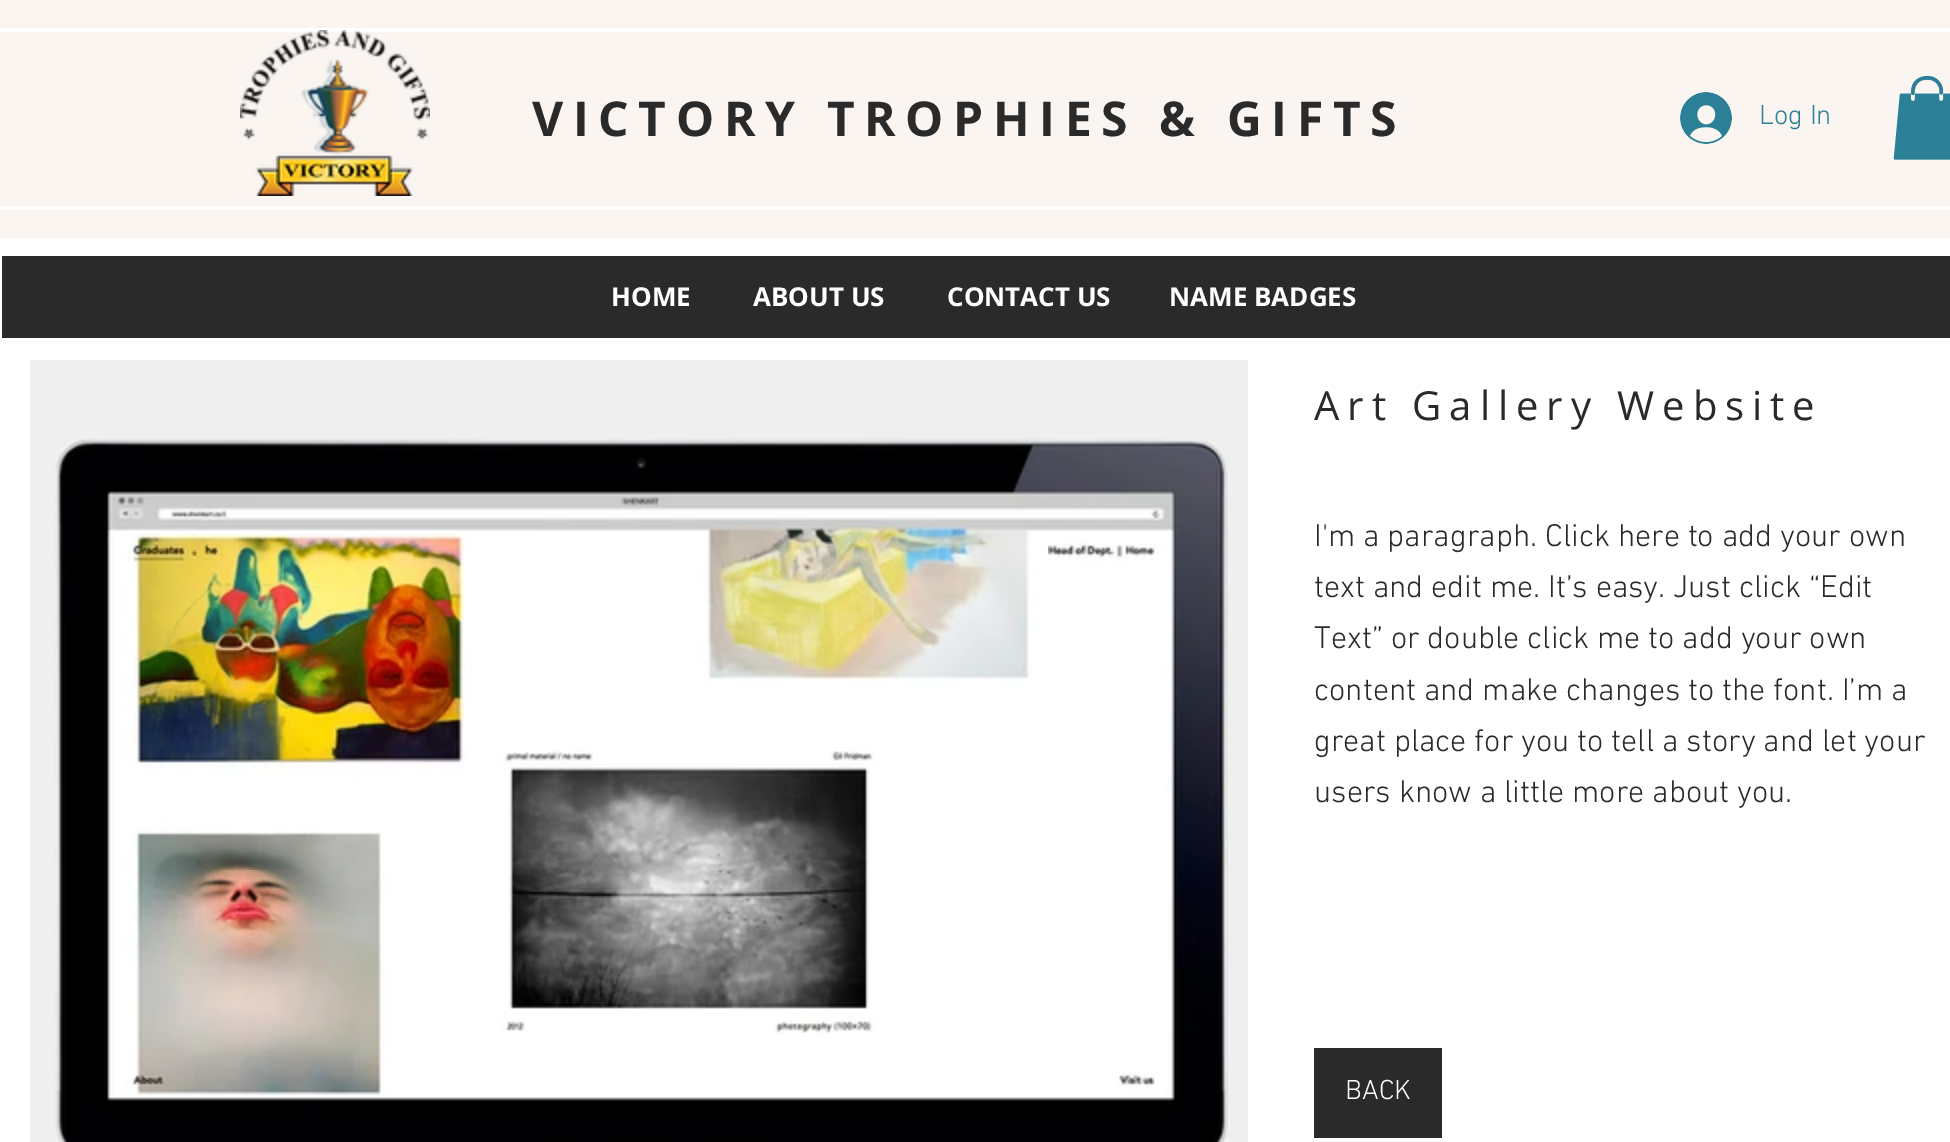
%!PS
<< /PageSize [1950 1142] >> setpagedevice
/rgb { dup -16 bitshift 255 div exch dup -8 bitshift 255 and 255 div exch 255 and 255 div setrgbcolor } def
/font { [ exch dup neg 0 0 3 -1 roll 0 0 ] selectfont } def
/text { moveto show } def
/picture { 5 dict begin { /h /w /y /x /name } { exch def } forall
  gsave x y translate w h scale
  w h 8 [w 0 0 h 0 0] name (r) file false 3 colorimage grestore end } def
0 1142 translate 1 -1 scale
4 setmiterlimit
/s1 { /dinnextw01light-Light 28 font 16#2B8097 rgb } def
/s2 { /OpenSans-Bold 26 font 16#FFFFFF rgb } def
/s3 { /dinnextw01light-Light 32 font 16#2A2A2A rgb } def
/s4 { /dinnextw01light-Light 28 font 16#FFFFFF rgb } def
16#FFFFFF rgb
0 0 1950 1142 rectfill
16#FAF5F1 rgb
0 0 1950 238 rectfill
16#FFFFFF rgb
0 28 1950 4 rectfill
0 206 1950 4 rectfill
(pic1.raw) 240 30 190 166 picture
/OpenSans-Bold 48 font
16#2A2A2A rgb
532 136 moveto 9.6 0 (VICTORY TROPHIES & GIFTS) ashow
(pic2.raw) 1680 92 52 52 picture
s1
(Log In) 1759 124 text
(pic3.raw) 1893 76 57 84 picture
16#2A2A2A rgb
2 256 1948 82 rectfill
s2
(HOME) 611 306 text
(ABOUT US) 753 306 text
(CONTACT US) 947 306 text
(NAME BADGES) 1169 306 text
(pic4.raw) 30 360 1218 782 picture
/OpenSans-Regular 40 font
16#2A2A2A rgb
1314 420 moveto 8 0 (Art Gallery Website) ashow
s3
(I'm a paragraph. Click here to add your own) 1314 546 text
(text and edit me. It’s easy. Just click “Edit) 1314 597 text
(Text” or double click me to add your own) 1314 648 text
(content and make changes to the font. I’m a) 1314 700 text
(great place for you to tell a story and let your) 1314 751 text
(users know a little more about you.) 1314 802 text
1314 1048 128 90 rectfill
s4
(BACK) 1345 1099 text
showpage
